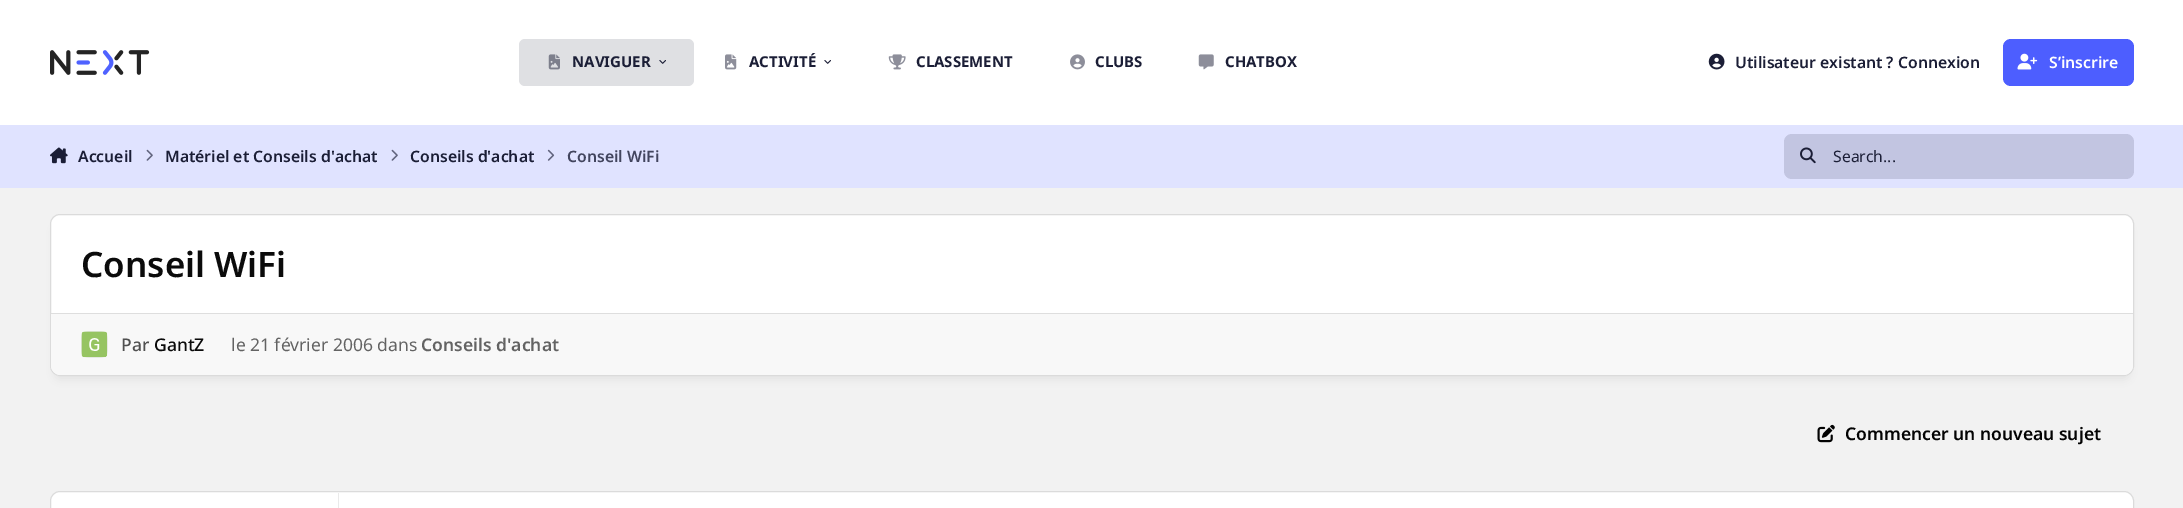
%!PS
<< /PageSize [2183 508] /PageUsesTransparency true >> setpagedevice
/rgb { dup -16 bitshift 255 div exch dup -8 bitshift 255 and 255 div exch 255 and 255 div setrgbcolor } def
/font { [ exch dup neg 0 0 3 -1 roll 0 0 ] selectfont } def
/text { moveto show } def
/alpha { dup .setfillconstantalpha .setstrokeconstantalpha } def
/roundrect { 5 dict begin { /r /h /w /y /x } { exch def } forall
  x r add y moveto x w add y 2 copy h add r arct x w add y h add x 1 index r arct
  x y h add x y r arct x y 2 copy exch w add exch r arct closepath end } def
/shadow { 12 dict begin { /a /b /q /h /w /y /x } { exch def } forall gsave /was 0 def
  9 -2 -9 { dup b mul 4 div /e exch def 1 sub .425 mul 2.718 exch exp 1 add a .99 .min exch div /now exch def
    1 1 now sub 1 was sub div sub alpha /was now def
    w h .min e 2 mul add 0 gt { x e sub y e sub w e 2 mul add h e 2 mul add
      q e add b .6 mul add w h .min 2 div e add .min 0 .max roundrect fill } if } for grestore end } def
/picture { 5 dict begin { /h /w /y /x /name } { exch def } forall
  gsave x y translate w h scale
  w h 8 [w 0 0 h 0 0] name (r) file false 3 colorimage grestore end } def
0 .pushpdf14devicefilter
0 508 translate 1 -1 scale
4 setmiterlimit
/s1 { /NotoSans-Bold 15 font 16#1B1E36 rgb } def
/s2 { /NotoSans-SemiBold 15.75 font 16#1B1E36 rgb } def
/s3 { /NotoSans-SemiBold 15.75 font 16#FFFFFF rgb } def
/s4 { /NotoSans-SemiBold 15.75 font 16#42455E rgb } def
/s5 { /NotoSans-Regular 15.75 font 16#1B1E36 rgb } def
/s6 { /NotoSans-SemiBold 35 font 16#0B0B0B rgb } def
/s7 { /NotoSans-Medium 17.5 font 16#505050 rgb } def
/s8 { /NotoSans-Medium 17.5 font 16#0B0B0B rgb } def
/s9 { /NotoSans-Regular 17.5 font 16#636363 rgb } def
/s10 { /NotoSans-SemiBold 17.5 font 16#636363 rgb } def
/s11 { /NotoSans-SemiBold 17.5 font 16#030303 rgb } def
16#F2F2F2 rgb
0 0 2183 508 rectfill
16#FFFFFF rgb
0 0 2183 125 rectfill
(pic1.raw) 50 50 100 25 picture
16#DFE0E3 rgb
519 39 175 47 6 roundrect fill
(pic2.raw) 548 54 12 16 picture
s1
(NAVIGUER) 572 67 text
(pic3.raw) 659 60 7 4 picture
(pic4.raw) 725 54 12 16 picture
(ACTIVITÉ) 749 67 text
(pic5.raw) 824 60 7 4 picture
(pic6.raw) 888 54 18 16 picture
(CLASSEMENT) 916 67 text
(pic7.raw) 1070 54 15 16 picture
(CLUBS) 1095 67 text
(pic8.raw) 1198 54 16 16 picture
(CHATBOX) 1225 67 text
(pic9.raw) 1708 53 17 17 picture
s2
(Utilisateur existant ? Connexion) 1735 68 text
16#4D5EFF rgb
2003 39 131 47 8 roundrect fill
(pic10.raw) 2017 53 21 17 picture
s3
(S’inscrire) 2049 68 text
16#E0E3FF rgb
0 125 2183 63 rectfill
(pic11.raw) 50 147 18 17 picture
s2
(Accueil) 78 162 text
(pic12.raw) 146 149 7 12 picture
(Matériel et Conseils d'achat) 165 162 text
(pic12.raw) 391 149 7 12 picture
(Conseils d'achat) 410 162 text
(pic13.raw) 547 149 8 12 picture
s4
(Conseil WiFi) 567 162 text
16#C2C5E1 rgb
1784 134 350 45 8 roundrect fill
(pic14.raw) 1800 147 16 17 picture
s5
(Search...) 1833 162 text
16#030303 rgb
54 225 2076 155 6 4.5 0.05 shadow
16#FFFFFF rgb
50.5 214.5 2083 161 9.5 roundrect gsave fill grestore
16#DBDBDB rgb
stroke
s6
(Conseil WiFi) 81 277 text
16#F8F8F8 rgb
51 313 moveto 2133 313 lineto 2133 365 lineto 2133 370.5 2128.5 375 2123 375 curveto 61 375 lineto 55.5 375 51 370.5 51 365 curveto closepath fill
16#DEDEDE rgb
51 313 2082 1 rectfill
16#EAEAEA rgb
81 331 27 27 8 roundrect fill
(pic15.raw) 81 331 27 27 picture
s7
(Par) 121 351 text
s8
(GantZ) 154 351 text
s9
(le 21 février 2006 dans) 231 351 text
s10
(Conseils d'achat) 421 351 text
(pic16.raw) 1817 424 18 19 picture
s11
(Commencer un nouveau sujet) 1845 440 text
16#FFFFFF rgb
50.5 491.5 2083 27 9.5 roundrect gsave fill grestore
16#DBDBDB rgb
stroke
16#EAEAEA rgb
338 493 1 15 rectfill
.poppdf14devicefilter showpage
